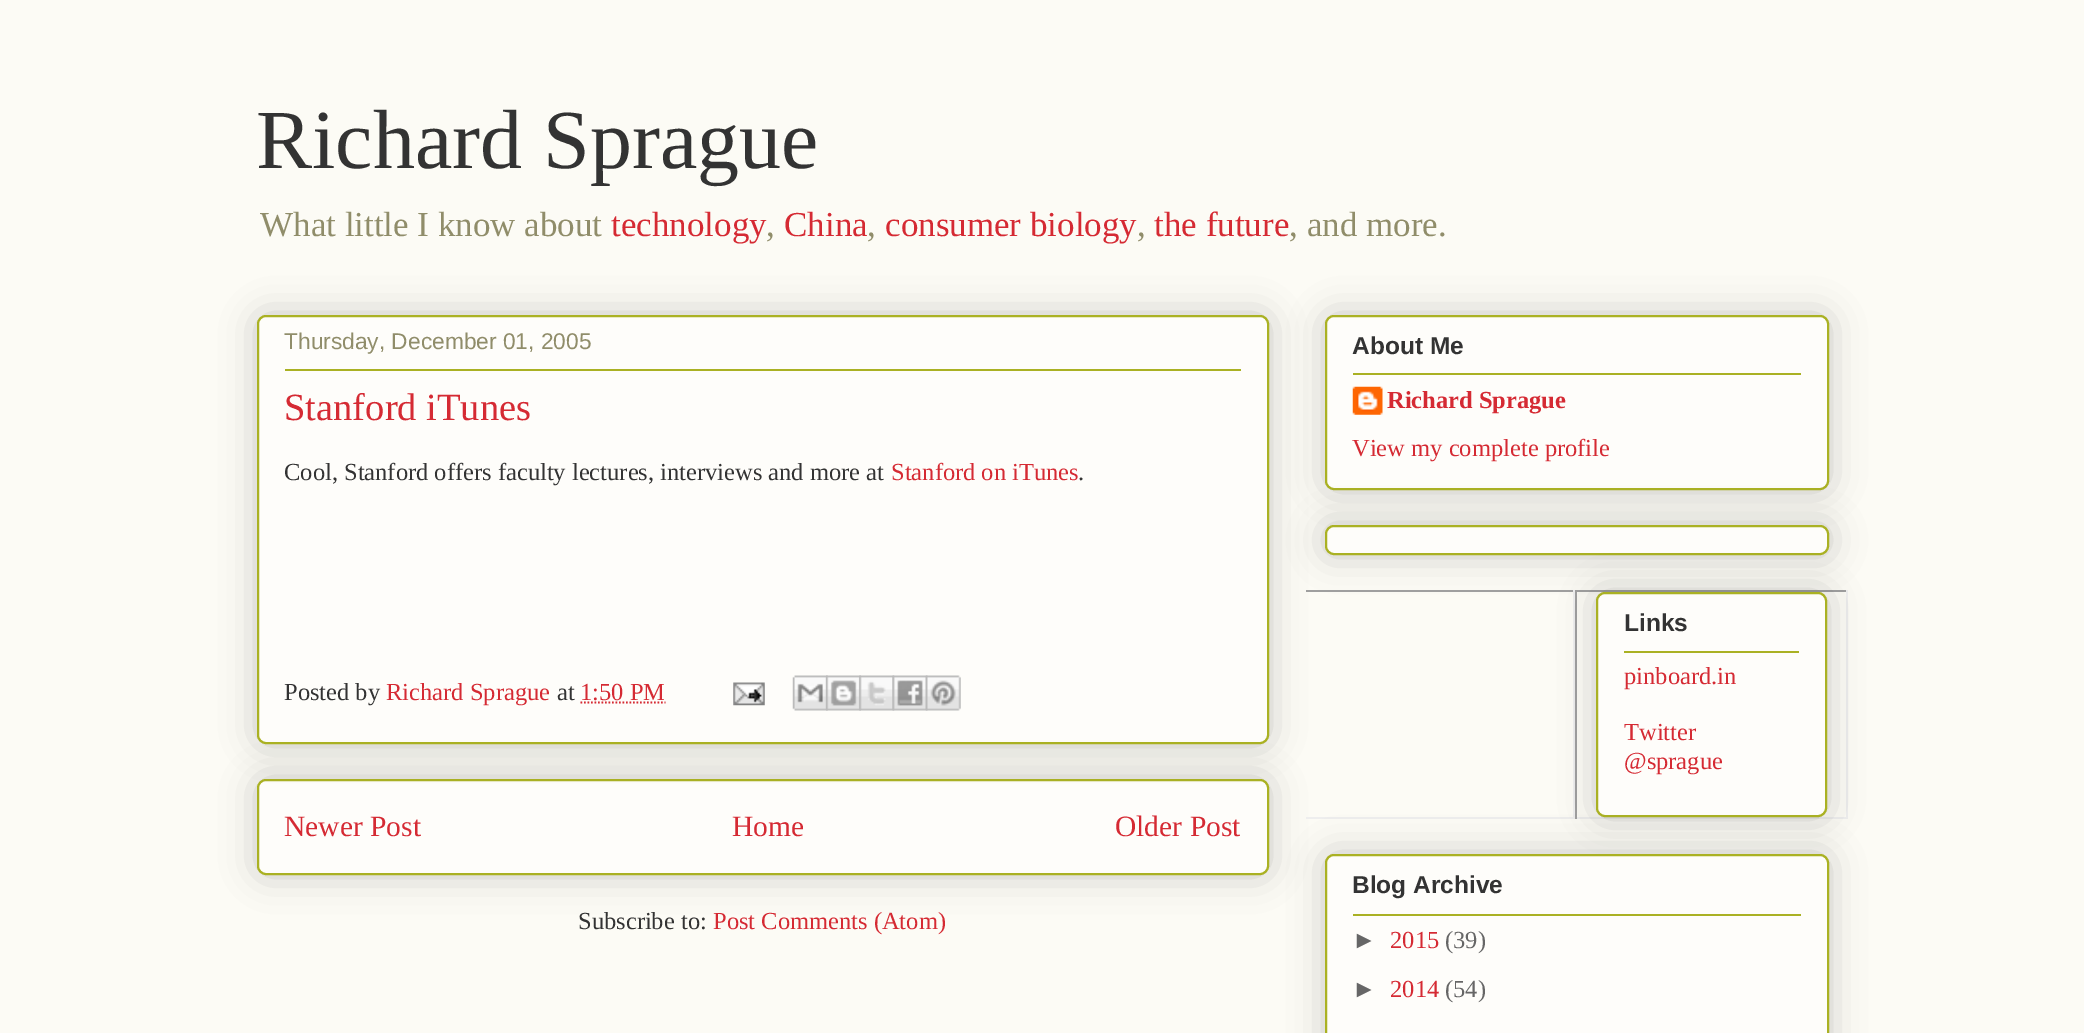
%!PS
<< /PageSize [2084 1033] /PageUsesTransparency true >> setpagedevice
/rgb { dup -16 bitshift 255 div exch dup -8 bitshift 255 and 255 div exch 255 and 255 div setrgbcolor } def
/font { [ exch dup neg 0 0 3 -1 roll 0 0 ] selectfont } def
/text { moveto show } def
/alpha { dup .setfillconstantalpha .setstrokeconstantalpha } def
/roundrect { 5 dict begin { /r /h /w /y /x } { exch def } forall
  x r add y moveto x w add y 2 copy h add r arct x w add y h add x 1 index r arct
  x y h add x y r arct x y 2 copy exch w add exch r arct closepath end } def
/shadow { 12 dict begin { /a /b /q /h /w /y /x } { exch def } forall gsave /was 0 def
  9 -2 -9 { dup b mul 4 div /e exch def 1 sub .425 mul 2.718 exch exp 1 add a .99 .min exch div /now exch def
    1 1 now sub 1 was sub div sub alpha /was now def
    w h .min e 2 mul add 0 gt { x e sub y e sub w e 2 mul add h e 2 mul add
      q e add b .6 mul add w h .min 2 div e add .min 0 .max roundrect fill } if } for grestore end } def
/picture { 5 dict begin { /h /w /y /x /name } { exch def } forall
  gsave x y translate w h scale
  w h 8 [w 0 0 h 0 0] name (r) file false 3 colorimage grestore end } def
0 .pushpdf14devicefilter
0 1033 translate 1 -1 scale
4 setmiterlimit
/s1 { /LiberationSerif-Regular 84 font 16#333333 rgb } def
/s2 { /LiberationSerif-Regular 35 font 16#908D6A rgb } def
/s3 { /LiberationSerif-Regular 35 font 16#D52A33 rgb } def
/s4 { /LiberationSans-Regular 22.75 font 16#908D6A rgb } def
/s5 { /LiberationSerif-Regular 38.5 font 16#D52A33 rgb } def
/s6 { /LiberationSerif-Regular 24.5 font 16#333333 rgb } def
/s7 { /LiberationSerif-Regular 24.5 font 16#D52A33 rgb } def
/s8 { /LiberationSerif-Regular 29.5 font 16#D52A33 rgb } def
/s9 { /LiberationSans-Bold 24.5 font 16#333333 rgb } def
/s10 { /LiberationSerif-Bold 24.5 font 16#D52A33 rgb } def
/s11 { /LiberationSans-Regular 24.5 font 16#666666 rgb } def
/s12 { /LiberationSerif-Regular 24.5 font 16#666666 rgb } def
16#FCFBF5 rgb
0 0 2084 1033 rectfill
s1
(Richard Sprague) 256 168 text
s2
(What little I know about) 260 236 text
s3
(technology) 611 236 text
s2
(,) 766 236 text
s3
(China) 784 236 text
s2
(,) 867 236 text
s3
(consumer biology) 885 236 text
s2
(,) 1137 236 text
s3
(the future) 1154 236 text
s2
(, and more.) 1289 236 text
16#000000 rgb
257 779 1012 96 9 17.5 0.2 shadow
16#FEFDFA rgb
258 780 1010 94 8 roundrect gsave fill grestore
16#AAB123 rgb
2 setlinewidth
stroke
16#000000 rgb
257 315 1012 429 9 17.5 0.2 shadow
16#FEFDFA rgb
258 316 1010 427 8 roundrect gsave fill grestore
16#AAB123 rgb
stroke
s4
(Thursday, December 01, 2005) 284 349 text
16#AAB123 rgb
285 369 956 2 rectfill
s5
(Stanford iTunes) 284 420 text
s6
(Cool, Stanford offers faculty lectures, interviews and more at) 284 480 text
s7
(Stanford on iTunes) 891 480 text
s6
(.) 1078 480 text
(Posted by) 284 700 text
s7
(Richard Sprague) 386 700 text
s6
(at) 557 700 text
s7
(1:50 PM) 580 700 text
1.8 setlinewidth
[1.75 1.75] 0 setdash
580.5 702.5 moveto 665.5 702.5 lineto stroke
(pic1.raw) 733 682 32 24 picture
(pic2.raw) 792 675 36 36 picture
(pic3.raw) 826 675 35 36 picture
(pic4.raw) 859 675 36 36 picture
(pic5.raw) 892 675 36 36 picture
(pic6.raw) 925 675 36 36 picture
s8
(Newer Post) 284 836 text
(Home) 732 836 text
(Older Post) 1115 836 text
s6
(Subscribe to:) 578 929 text
s7
(Post Comments \(Atom\)) 713 929 text
16#000000 rgb
1325 315 504 175 9 17.5 0.2 shadow
16#FEFDFA rgb
1326 316 502 173 8 roundrect gsave fill grestore
16#AAB123 rgb
2 setlinewidth
[] 0 setdash
stroke
s9
(About Me) 1352 354 text
16#AAB123 rgb
1353 373 448 2 rectfill
(pic7.raw) 1352 386 31 29 picture
s10
(Richard Sprague) 1387 408 text
s7
(View my complete profile) 1352 456 text
16#000000 rgb
1325 525 504 30 9 17.5 0.2 shadow
16#FEFDFA rgb
1326 526 502 28 8 roundrect gsave fill grestore
16#AAB123 rgb
stroke
16#9F9F9F rgb
1306 590 542 2 rectfill
16#EEEEEE rgb
1573 590 2 229 rectfill
1306 817 269 2 rectfill
1846 590 2 229 rectfill
1575 817 273 2 rectfill
16#9F9F9F rgb
1575 590 2 229 rectfill
16#000000 rgb
1596 592 231 225 9 17.5 0.2 shadow
16#FEFDFA rgb
1597 593 229 223 8 roundrect gsave fill grestore
16#AAB123 rgb
stroke
s9
(Links) 1624 631 text
16#AAB123 rgb
1624 651 175 2 rectfill
s7
(pinboard.in) 1624 684 text
(Twitter) 1624 740 text
(@sprague) 1624 769 text
16#000000 rgb
1325 854 504 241 9 17.5 0.2 shadow
16#FEFDFA rgb
1326 855 502 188 8 roundrect gsave fill grestore
16#AAB123 rgb
stroke
s9
(Blog Archive) 1352 893 text
16#AAB123 rgb
1353 914 448 2 rectfill
s11
(►) 1352 948 text
s7
(2015) 1390 948 text
s12
(\(39\)) 1445 948 text
s11
(►) 1352 997 text
s7
(2014) 1390 997 text
s12
(\(54\)) 1445 997 text
.poppdf14devicefilter showpage
